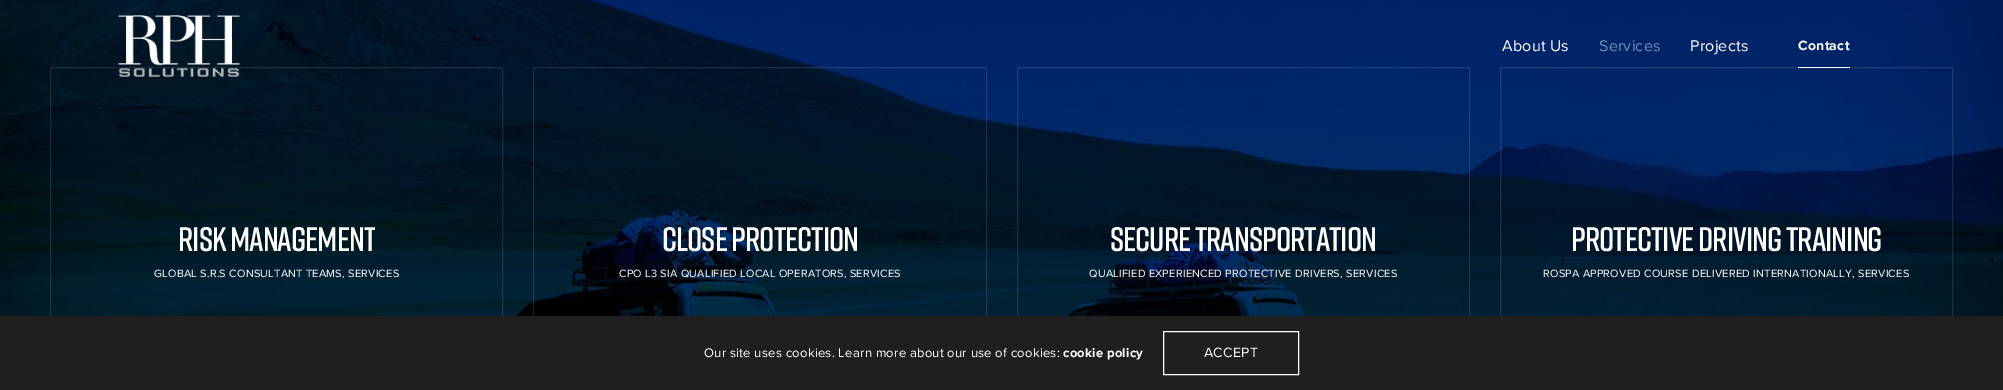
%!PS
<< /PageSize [2003 390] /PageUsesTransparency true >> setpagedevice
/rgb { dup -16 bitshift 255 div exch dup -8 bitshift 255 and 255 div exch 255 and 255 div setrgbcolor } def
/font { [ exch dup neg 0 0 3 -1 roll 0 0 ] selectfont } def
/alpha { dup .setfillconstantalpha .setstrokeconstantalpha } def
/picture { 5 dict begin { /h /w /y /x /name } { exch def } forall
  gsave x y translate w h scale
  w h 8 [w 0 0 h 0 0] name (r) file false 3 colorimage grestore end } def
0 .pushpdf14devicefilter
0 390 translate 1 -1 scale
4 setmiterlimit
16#FFFFFF rgb
0 0 2003 390 rectfill
(pic2.raw) 0 0 2003 316 picture
0.1 alpha
50.5 67.5 452 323 rectstroke
1 alpha
(pic1.raw) 118 15 122 62 picture
/ProximaNova-Regular 16 font
1502 51 moveto 0.25 0 (About Us) ashow
16#698FBB rgb
1599 51 moveto 0.25 0 (Services) ashow
16#FFFFFF rgb
1690 51 moveto 0.25 0 (Projects) ashow
0.1 alpha
1500.5 67.5 452 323 rectstroke
1 alpha
1798 67 52 1 rectfill
/ProximaNova-Bold 14 font
1798 50 moveto 0.25 0 (Contact) ashow
gsave
178 217 197 44 rectclip
/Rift-SemiBold 34 font
178 251 moveto -1 0 (Risk Management) ashow
grestore
/ProximaNova-Regular 11 font
154 277 moveto 0.25 0 (GLOBAL S.R.S CONSULTANT TEAMS, SERVICES) ashow
0.1 alpha
533.5 67.5 453 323 rectstroke
/Rift-SemiBold 34 font
1 alpha
662 251 moveto -1 0 (Close protection) ashow
/ProximaNova-Regular 11 font
619 277 moveto 0.25 0 (CPO L3 SIA QUALIFIED LOCAL OPERATORS, SERVICES) ashow
0.1 alpha
1017.5 67.5 452 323 rectstroke
/Rift-SemiBold 34 font
1 alpha
1110 251 moveto -1 0 (Secure Transportation) ashow
/ProximaNova-Regular 11 font
1089 277 moveto 0.25 0 (QUALIFIED EXPERIENCED PROTECTIVE DRIVERS, SERVICES) ashow
/Rift-SemiBold 34 font
1571 251 moveto -1 0 (Protective Driving Training) ashow
/ProximaNova-Regular 11 font
1543 277 moveto 0.25 0 (ROSPA APPROVED COURSE DELIVERED INTERNATIONALLY, SERVICES) ashow
16#1F1F1F rgb
0 316 2003 74 rectfill
/ProximaNova-Regular 13 font
16#FFFFFF rgb
704 357 moveto 0.25 0 (Our site uses cookies. Learn more about our use of cookies:) ashow
/ProximaNova-Bold 13 font
1063 357 moveto 0.25 0 (cookie policy) ashow
1163.5 331.5 135 43 rectstroke
/ProximaNova-Regular 14 font
1204 357 moveto 0.25 0 (ACCEPT) ashow
.poppdf14devicefilter showpage
